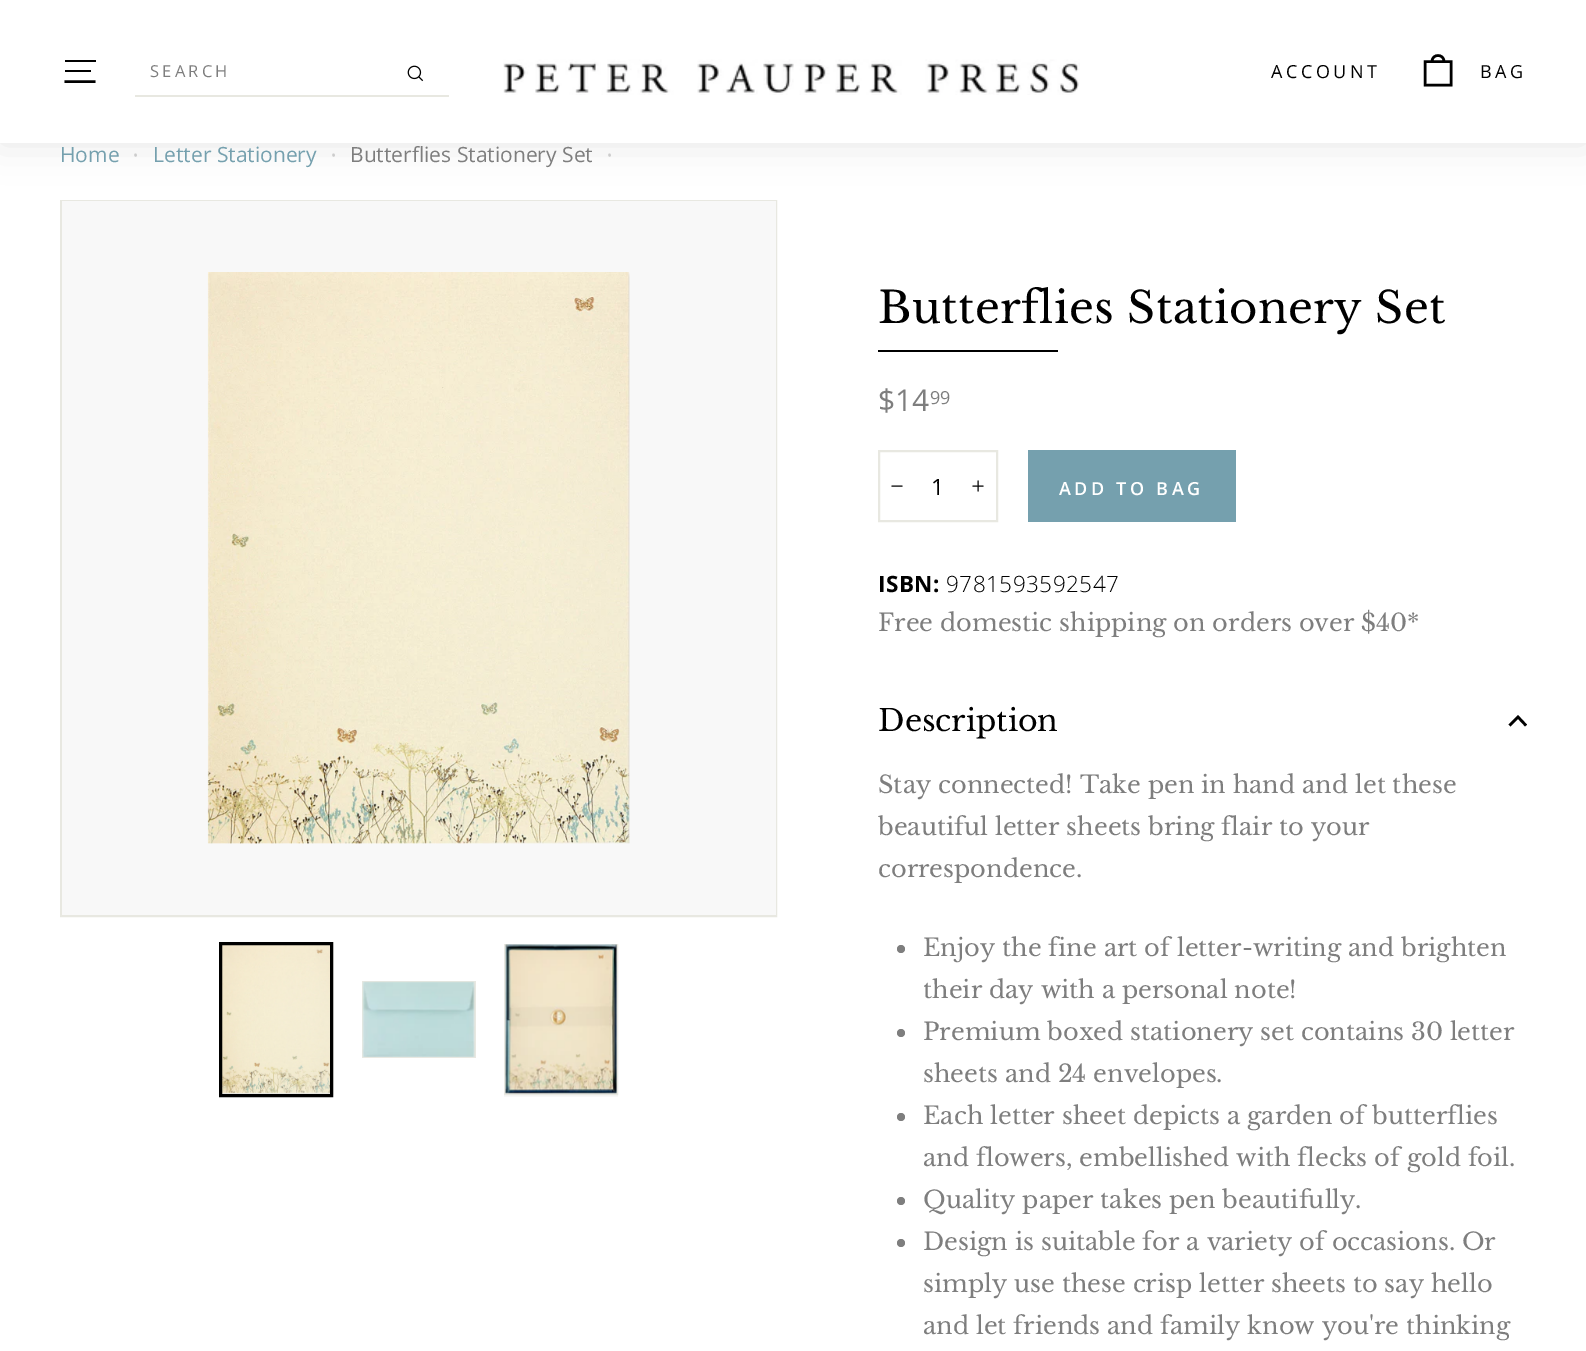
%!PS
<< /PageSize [1586 1351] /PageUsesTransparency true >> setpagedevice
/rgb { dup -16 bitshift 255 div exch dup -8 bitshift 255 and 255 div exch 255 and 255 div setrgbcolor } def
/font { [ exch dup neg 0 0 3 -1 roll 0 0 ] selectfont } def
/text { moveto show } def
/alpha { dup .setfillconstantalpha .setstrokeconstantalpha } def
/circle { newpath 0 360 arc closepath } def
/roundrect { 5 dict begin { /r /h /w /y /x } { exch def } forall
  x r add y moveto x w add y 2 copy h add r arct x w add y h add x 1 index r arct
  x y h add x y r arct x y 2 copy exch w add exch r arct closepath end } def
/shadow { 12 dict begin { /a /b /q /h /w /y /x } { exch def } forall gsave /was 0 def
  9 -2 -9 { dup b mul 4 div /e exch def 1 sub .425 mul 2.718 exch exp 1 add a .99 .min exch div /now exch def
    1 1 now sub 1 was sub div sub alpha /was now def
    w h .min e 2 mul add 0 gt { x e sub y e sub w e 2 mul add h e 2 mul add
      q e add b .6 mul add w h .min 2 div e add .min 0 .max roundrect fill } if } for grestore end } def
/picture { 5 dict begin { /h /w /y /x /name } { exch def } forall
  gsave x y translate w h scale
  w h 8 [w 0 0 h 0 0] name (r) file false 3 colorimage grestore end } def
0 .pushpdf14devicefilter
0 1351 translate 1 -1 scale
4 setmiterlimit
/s1 { /OpenSans-Regular 21 font 16#75A0AE rgb } def
/s2 { /OpenSans-Regular 21 font 16#7E7E7E rgb } def
/s3 { /OpenSans-Regular 30 font 16#7E7E7E rgb } def
/s4 { /OpenSans-Regular 18 font 16#7E7E7E rgb } def
/s5 { /LibreBaskerville-Regular 24 font 16#7E7E7E rgb } def
/s6 { /LibreBaskerville-Regular 30 font 16#000000 rgb } def
16#FFFFFF rgb
0 0 1586 1351 rectfill
16#E8E8E1 rgb
2 setlinewidth
61 201 715 715 rectstroke
16#000000 rgb
0 0 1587 143 0 19 0.1 shadow
16#FFFFFF rgb
0 0 1586 143 rectfill
16#000000 rgb
65 60 31 2 rectfill
65 70 26 2 rectfill
2.4 setlinewidth
64.5 81.5 moveto 95.5 81.5 lineto stroke
16#E8E8E1 rgb
135 95 314 2 rectfill
/OpenSans-Regular 16.5 font
16#7E7E7E rgb
150 77 moveto 3.25 0 (SEARCH) ashow
(pic1.raw) 407 65 17 17 picture
(pic2.raw) 503 59 577 36 picture
/OpenSans-Regular 18 font
16#000000 rgb
1271 78 moveto 3.6 0 (ACCOUNT) ashow
2.5 setlinewidth
1432 61.5 moveto 1432 53.5 1444 53.5 1444 61.5 curveto 1425 61.5 moveto 1451 61.5 lineto 1451 85 lineto 1425 85 lineto closepath stroke
1480 78 moveto 3.6 0 (BAG) ashow
s1
(Home) 60 162 text
/OpenSans-Light 19 font
16#CCCCCC rgb
132 162 moveto 0.5 0 (•) ashow
s1
(Letter Stationery) 153 162 text
/OpenSans-Light 19 font
16#CCCCCC rgb
330 162 moveto 0.5 0 (•) ashow
s2
(Butterflies Stationery Set) 350 162 text
/OpenSans-Light 19 font
16#CCCCCC rgb
606 162 moveto 0.5 0 (•) ashow
16#F8F8F8 rgb
62 201 714 714 rectfill
(pic3.raw) 207 272 423 572 picture
16#E8E8E1 rgb
2 setlinewidth
220 943 112 151 rectstroke
(pic4.raw) 222 945 108 149 picture
16#000000 rgb
3 setlinewidth
220.5 943.5 111 152 rectstroke
16#F8F8F8 rgb
364 983 110 74 rectfill
gsave
362 981 114 77 rectclip
16#E8E8E1 rgb
2 setlinewidth
363 982 112 76 rectstroke
grestore
(pic5.raw) 362 981 113 76 picture
504 946 114 151 rectfill
16#E8E8E1 rgb
2 setlinewidth
505 945 112 149 rectstroke
(pic6.raw) 505 944 112 150 picture
/LibreBaskerville-Regular 43.4 font
16#000000 rgb
878 323 moveto 0.4 0 (Butterflies Stationery Set) ashow
878 350 180 2 rectfill
s3
($14) 878 411 text
s4
(99) 930 404 text
16#E8E8E1 rgb
879 451 118 70 rectstroke
16#000000 rgb
0.9 setlinewidth
902.5 486 moveto 891.5 486 lineto stroke
/OpenSans-Regular 22.5 font
931 495 moveto 0.5 0 (1) ashow
978 480.5 moveto 978 491.5 lineto 983.5 486 moveto 972.5 486 lineto stroke
16#75A0AE rgb
1028 450 208 72 rectfill
/OpenSans-SemiBold 18 font
16#FFFFFF rgb
1059 495 moveto 3.6 0 (ADD TO BAG) ashow
/OpenSans-Bold 22.5 font
16#000000 rgb
878 592 moveto 0.5 0 (ISBN:) ashow
/OpenSans-Light 22.5 font
946 592 moveto 0.5 0 (9781593592547) ashow
s5
(Free domestic shipping on orders over $40*) 878 631 text
s6
(Description) 878 731 text
2.6 setlinewidth
1526 725.5 moveto 1518 717 lineto 1509.5 725.5 lineto stroke
s5
(Stay connected! Take pen in hand and let these) 878 793 text
(beautiful letter sheets bring flair to your) 878 835 text
(correspondence.) 878 877 text
901 949 4 circle fill
(Enjoy the fine art of letter-writing and brighten) 923 956 text
(their day with a personal note!) 923 998 text
901 1033 4 circle fill
(Premium boxed stationery set contains 30 letter) 923 1040 text
(sheets and 24 envelopes.) 923 1082 text
901 1117 4 circle fill
(Each letter sheet depicts a garden of butterflies) 923 1124 text
(and flowers, embellished with flecks of gold foil.) 923 1166 text
901 1201 4 circle fill
(Quality paper takes pen beautifully.) 923 1208 text
901 1243 4 circle fill
(Design is suitable for a variety of occasions. Or) 923 1250 text
(simply use these crisp letter sheets to say hello) 923 1292 text
(and let friends and family know you're thinking) 923 1334 text
.poppdf14devicefilter showpage
